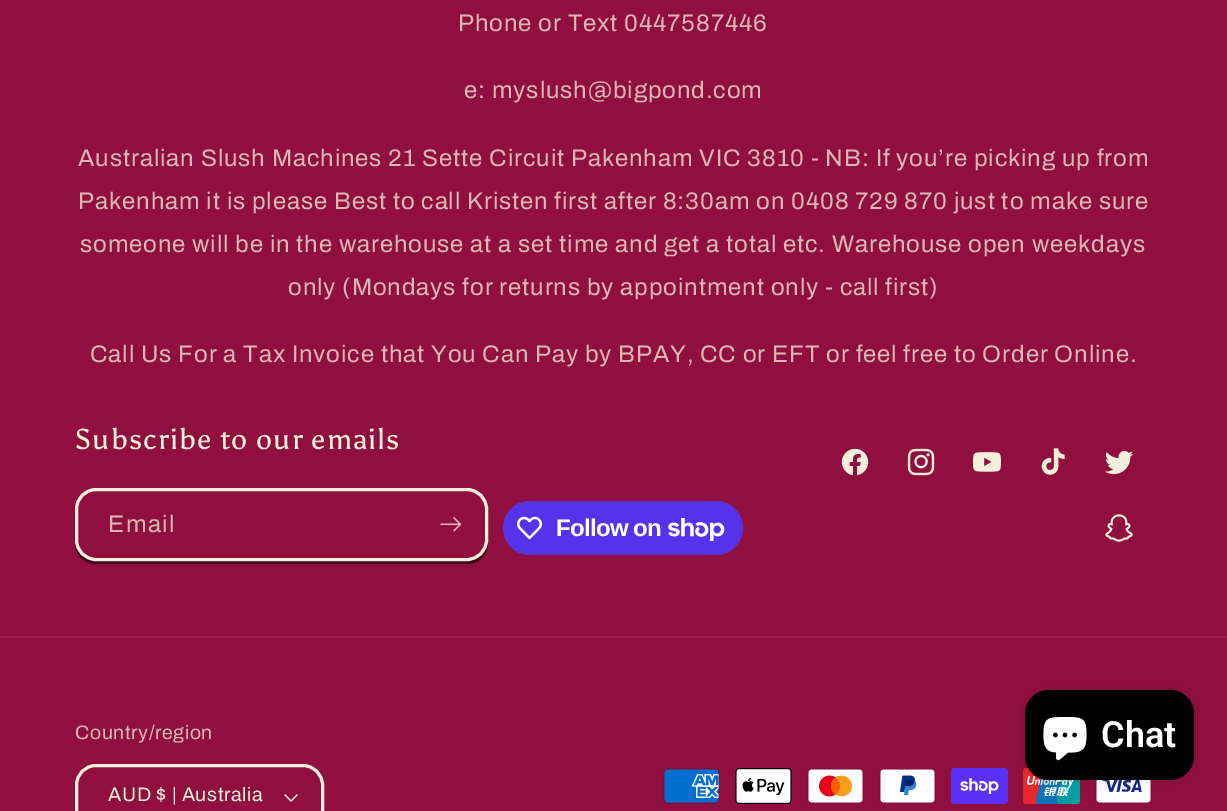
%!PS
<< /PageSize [1227 811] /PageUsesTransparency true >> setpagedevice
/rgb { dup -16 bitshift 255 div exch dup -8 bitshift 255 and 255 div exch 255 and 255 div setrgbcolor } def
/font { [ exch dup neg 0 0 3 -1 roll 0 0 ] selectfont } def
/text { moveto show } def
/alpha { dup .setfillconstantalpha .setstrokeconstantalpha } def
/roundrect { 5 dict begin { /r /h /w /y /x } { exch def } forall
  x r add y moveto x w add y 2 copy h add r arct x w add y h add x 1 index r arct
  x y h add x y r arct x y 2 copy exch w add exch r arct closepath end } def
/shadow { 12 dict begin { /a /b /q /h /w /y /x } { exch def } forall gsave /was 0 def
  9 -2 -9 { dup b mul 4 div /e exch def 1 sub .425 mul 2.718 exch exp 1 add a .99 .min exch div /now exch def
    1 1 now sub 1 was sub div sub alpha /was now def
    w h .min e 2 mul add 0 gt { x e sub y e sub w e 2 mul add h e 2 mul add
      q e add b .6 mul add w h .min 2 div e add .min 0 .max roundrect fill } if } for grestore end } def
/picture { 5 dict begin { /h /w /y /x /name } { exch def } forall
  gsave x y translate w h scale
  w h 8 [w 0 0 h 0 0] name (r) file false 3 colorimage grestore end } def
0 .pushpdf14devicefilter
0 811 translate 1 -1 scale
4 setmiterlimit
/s1 { /Roboto-SemiBold 36 font 16#FFFFFF rgb } def
16#910F3F rgb
0 0 1227 811 rectfill
/Archivo-Regular 24 font
16#DAB7B6 rgb
458 31 moveto 0.9 0 (Phone or Text 0447587446) ashow
464 98 moveto 0.9 0 (e: myslush@bigpond.com) ashow
78 166 moveto 0.9 0 (Australian Slush Machines 21 Sette Circuit Pakenham VIC 3810 - NB: If you’re picking up from) ashow
78 209 moveto 0.9 0 (Pakenham it is please Best to call Kristen first after 8:30am on 0408 729 870 just to make sure) ashow
80 252 moveto 0.9 0 (someone will be in the warehouse at a set time and get a total etc. Warehouse open weekdays) ashow
288 295 moveto 0.9 0 (only \(Mondays for returns by appointment only - call first\)) ashow
90 362 moveto 0.9 0 (Call Us For a Tax Invoice that You Can Pay by BPAY, CC or EFT or feel free to Order Online.) ashow
/Asul-Regular 28.75 font
16#F2EFDD rgb
75 449 moveto 1.1 0 (Subscribe to our emails) ashow
16#3D081B rgb
75 540 moveto 75 543 lineto 75 555 84 564 96 564 curveto 467 564 lineto 479 564 488 555 488 543 curveto 488 512 lineto 487 507 lineto 488 540 lineto 488 552 478 561 466 561 curveto 96 561 lineto 84 561 75 552 75 540 curveto closepath fill
16#F2EFDD rgb
3 setlinewidth
76.5 489.5 410 70 19.5 roundrect stroke
/Archivo-Regular 24 font
16#DAB7B6 rgb
108 532 moveto 1.5 0 (Email) ashow
(pic1.raw) 440 517 22 15 picture
16#5433EB rgb
503 501 240 54 27 roundrect fill
(pic2.raw) 517 516 25 24 picture
/LiberationSans-Bold 24 font
16#FFFFFF rgb
556 536 moveto -0.75 0 (Follow on) ashow
(pic3.raw) 668 518 57 23 picture
(pic4.raw) 841 448 28 28 picture
(pic5.raw) 907 448 28 28 picture
(pic6.raw) 973 452 28 20 picture
(pic7.raw) 1041 448 24 27 picture
(pic8.raw) 1105 451 28 24 picture
(pic9.raw) 1105 514 28 28 picture
16#99214C rgb
0 636 1227 2 rectfill
/Archivo-Regular 19.5 font
16#DAB7B6 rgb
75 739 moveto 0.6 0 (Country/region) ashow
(pic10.raw) 284 794 14 8 picture
16#F2EFDD rgb
76.5 765.5 246 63 19.5 roundrect stroke
108 801 moveto 0.6 0 (AUD $ | Australia) ashow
(pic11.raw) 663 768 57 36 picture
(pic12.raw) 735 768 57 36 picture
(pic13.raw) 807 768 57 36 picture
(pic14.raw) 879 768 57 36 picture
(pic15.raw) 951 768 57 36 picture
(pic16.raw) 1023 768 57 36 picture
(pic17.raw) 1095 780 57 24 picture
16#000000 rgb
1025 690 169 90 24 4 0.15 shadow
1025 690 169 90 24 roundrect fill
(pic18.raw) 1043 717 44 44 picture
s1
(Chat) 1101 747 text
.poppdf14devicefilter showpage
